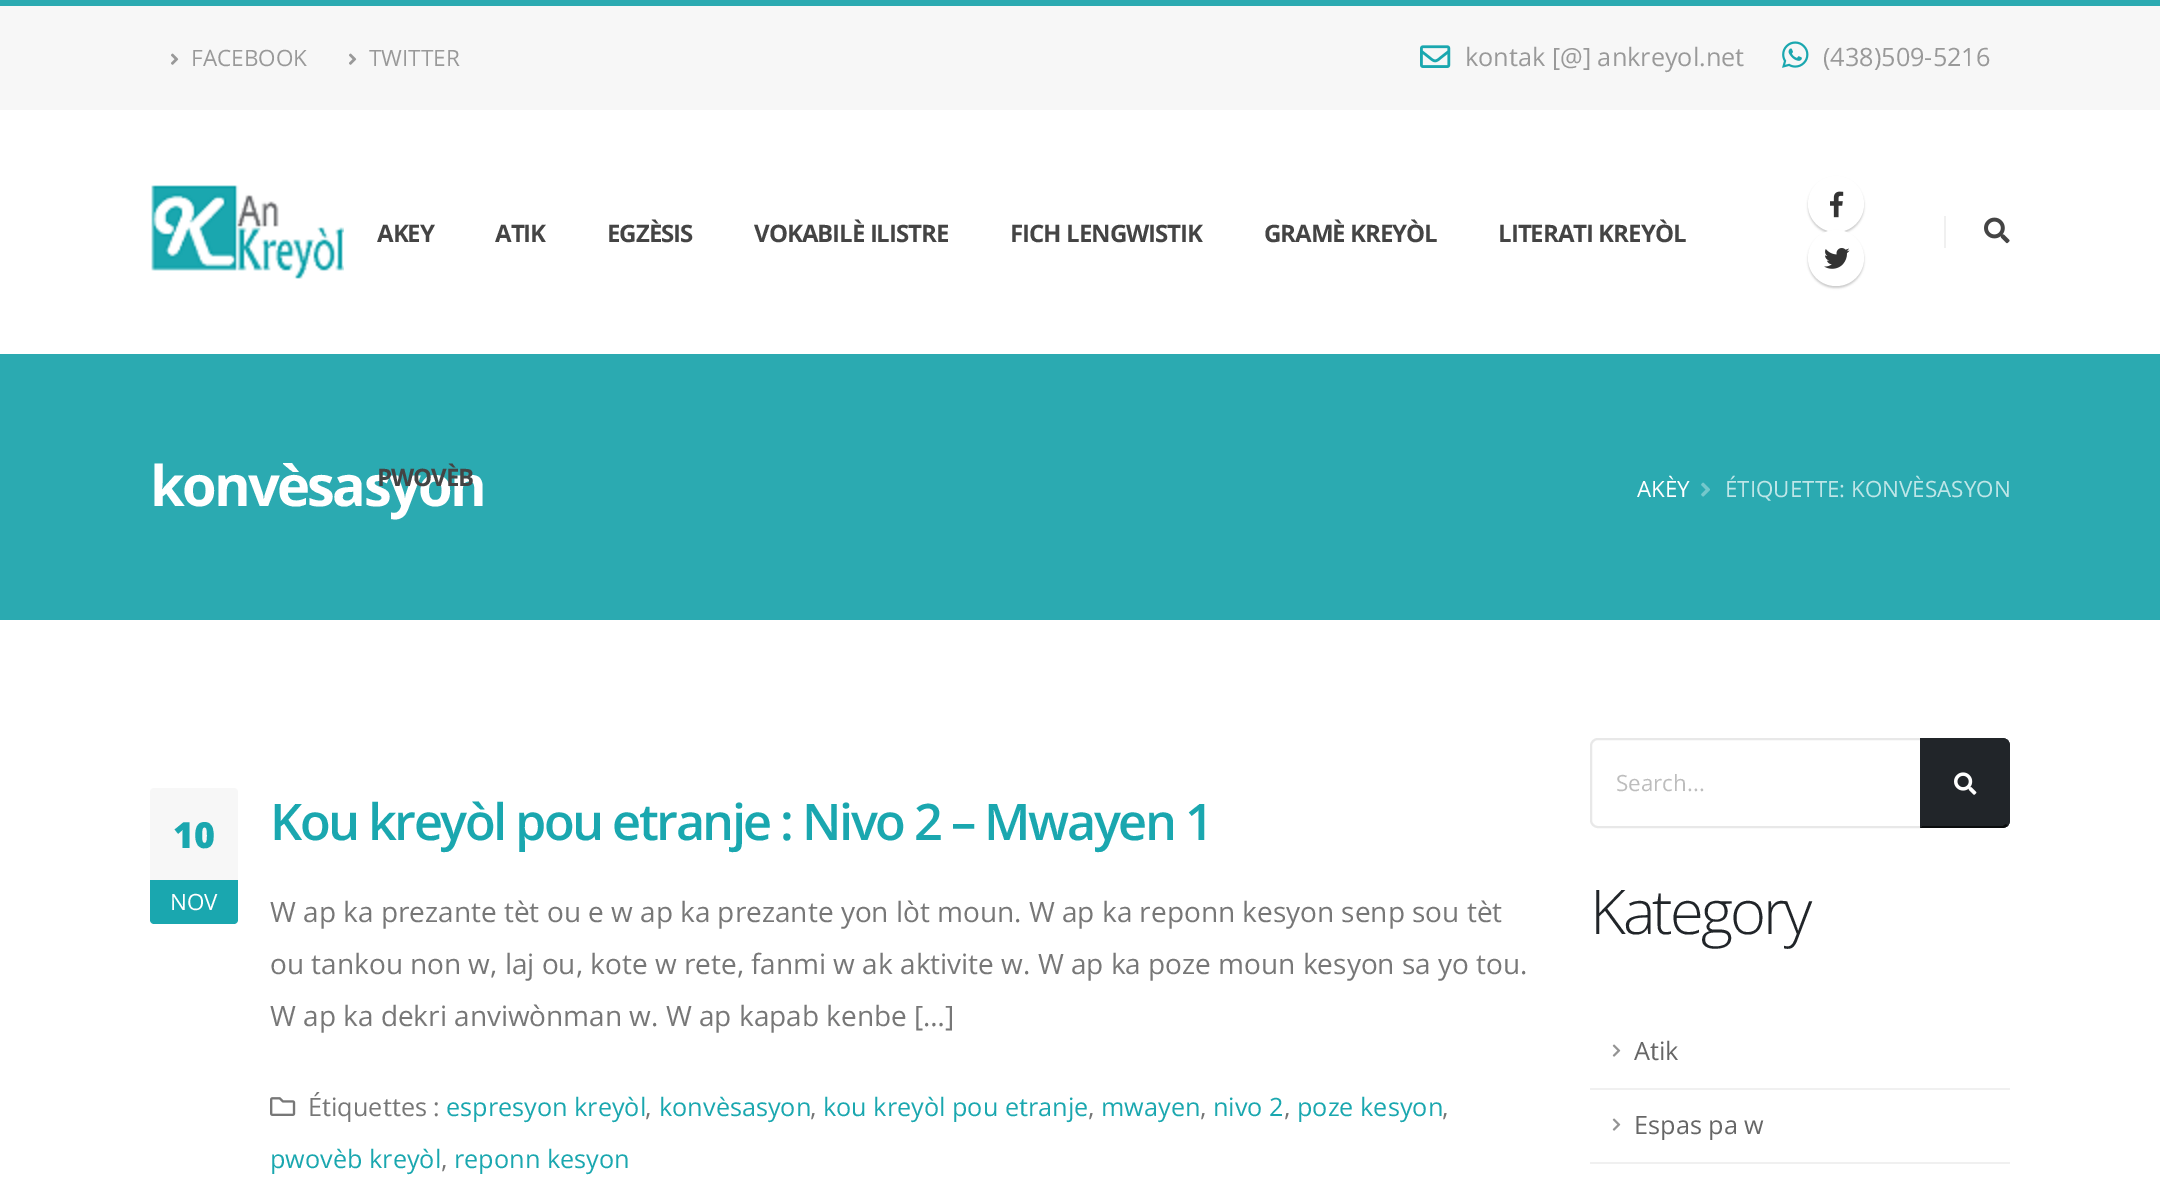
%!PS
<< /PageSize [2160 1185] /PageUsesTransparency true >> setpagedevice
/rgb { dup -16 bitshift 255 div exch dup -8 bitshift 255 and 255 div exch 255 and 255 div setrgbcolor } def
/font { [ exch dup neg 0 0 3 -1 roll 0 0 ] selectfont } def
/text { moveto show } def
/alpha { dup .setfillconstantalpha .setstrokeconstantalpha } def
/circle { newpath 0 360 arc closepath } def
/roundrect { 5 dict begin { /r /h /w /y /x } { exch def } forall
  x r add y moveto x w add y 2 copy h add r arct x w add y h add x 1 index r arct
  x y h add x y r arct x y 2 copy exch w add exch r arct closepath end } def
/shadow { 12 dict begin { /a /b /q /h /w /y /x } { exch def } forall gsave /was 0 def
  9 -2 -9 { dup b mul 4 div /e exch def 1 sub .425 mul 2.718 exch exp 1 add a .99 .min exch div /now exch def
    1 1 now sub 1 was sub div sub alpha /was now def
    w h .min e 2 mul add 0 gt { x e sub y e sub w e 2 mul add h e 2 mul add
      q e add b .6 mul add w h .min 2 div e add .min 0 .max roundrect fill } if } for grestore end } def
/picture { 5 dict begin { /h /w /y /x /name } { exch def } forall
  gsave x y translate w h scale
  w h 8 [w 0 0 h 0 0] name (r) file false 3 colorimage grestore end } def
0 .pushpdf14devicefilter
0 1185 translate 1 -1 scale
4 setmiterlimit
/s1 { /OpenSans-Regular 22.5 font 16#999999 rgb } def
/s2 { /OpenSans-Regular 25.25 font 16#999999 rgb } def
/s3 { /OpenSans-Regular 22.4 font 16#FFFFFF rgb } def
/s4 { /OpenSans-Regular 22.4 font 16#BFE6E8 rgb } def
/s5 { /OpenSans-ExtraBold 36 font 16#1AA7AF rgb } def
/s6 { /OpenSans-Regular 28 font 16#777777 rgb } def
/s7 { /OpenSans-Regular 25.25 font 16#777777 rgb } def
/s8 { /OpenSans-Regular 25.25 font 16#1AA7AF rgb } def
/s9 { /OpenSans-Regular 22.4 font 16#BDBDBD rgb } def
/s10 { /OpenSans-Regular 25.25 font 16#666666 rgb } def
16#FFFFFF rgb
0 0 2160 1185 rectfill
16#2BAAB1 rgb
0 0 2160 6 rectfill
16#F7F7F7 rgb
0 6 2160 104 rectfill
(pic1.raw) 171 53 8 12 picture
s1
(FACEBOOK) 191 66 text
(pic1.raw) 349 53 8 12 picture
(TWITTER) 369 66 text
(pic2.raw) 1420 45 31 23 picture
s2
(kontak [@] ankreyol.net) 1465 66 text
(pic3.raw) 1782 41 27 27 picture
(\(438\)509-5216) 1823 66 text
(pic4.raw) 151 185 193 94 picture
/OpenSans-Bold 24 font
16#444444 rgb
377 242 moveto -1 0 (AKEY) ashow
495 242 moveto -1 0 (ATIK) ashow
607 242 moveto -1 0 (EGZÈSIS) ashow
754 242 moveto -1 0 (VOKABILÈ ILISTRE) ashow
1010 242 moveto -1 0 (FICH LENGWISTIK) ashow
1264 242 moveto -1 0 (GRAMÈ KREYÒL) ashow
1498 242 moveto -1 0 (LITERATI KREYÒL) ashow
16#2BAAB1 rgb
0 354 2160 266 rectfill
/OpenSans-Bold 56 font
16#FFFFFF rgb
150 506 moveto -2.75 0 (konvèsasyon) ashow
/OpenSans-Bold 24 font
16#444444 rgb
377 486 moveto -1 0 (PWOVÈB) ashow
16#000000 rgb
1808 178 56 56 28 1 0.2 shadow
16#FFFFFF rgb
1836 204 28 circle fill
(pic5.raw) 1830 191 14 27 picture
16#000000 rgb
1808 232 56 56 28 1 0.2 shadow
16#FFFFFF rgb
1836 258 28 circle fill
(pic6.raw) 1824 248 26 21 picture
16#F0F0F0 rgb
1944 216 2 32 rectfill
(pic7.raw) 1984 217 26 27 picture
s3
(AKÈY) 1637 497 text
(pic8.raw) 1701 482 9 15 picture
s4
(ÉTIQUETTE: KONVÈSASYON) 1725 497 text
16#F7F7F7 rgb
154 788 moveto 234 788 lineto 236 788 238 790 238 792 curveto 238 880 lineto 150 880 lineto 150 792 lineto 150 790 152 788 154 788 curveto closepath fill
s5
(10) 173 848 text
150 880 moveto 238 880 lineto 238 920 lineto 238 922 236 924 234 924 curveto 154 924 lineto 152 924 150 922 150 920 curveto closepath fill
s3
(NOV) 170 910 text
/OpenSans-SemiBold 50.4 font
16#1AA7AF rgb
270 840 moveto -2.5 0 (Kou kreyòl pou etranje : Nivo 2 – Mwayen 1) ashow
s6
(W ap ka prezante tèt ou e w ap ka prezante yon lòt moun. W ap ka reponn kesyon senp sou tèt) 270 922 text
(ou tankou non w, laj ou, kote w rete, fanmi w ak aktivite w. W ap ka poze moun kesyon sa yo tou.) 270 974 text
(W ap ka dekri anviwònman w. W ap kapab kenbe […]) 270 1026 text
(pic9.raw) 270 1097 26 19 picture
s7
(Étiquettes :) 308 1116 text
s8
(espresyon kreyòl) 446 1116 text
s7
(,) 645 1116 text
s8
(konvèsasyon) 659 1116 text
s7
(,) 810 1116 text
s8
(kou kreyòl pou etranje) 823 1116 text
s7
(,) 1088 1116 text
s8
(mwayen) 1101 1116 text
s7
(,) 1200 1116 text
s8
(nivo 2) 1213 1116 text
s7
(,) 1284 1116 text
s8
(poze kesyon) 1297 1116 text
s7
(,) 1442 1116 text
s8
(pwovèb kreyòl) 270 1168 text
s7
(,) 441 1168 text
s8
(reponn kesyon) 454 1168 text
16#E8E8E8 rgb
2 setlinewidth
1598 739 moveto 1921 739 lineto 1921 827 lineto 1598 827 lineto 1594 827 1591 824 1591 820 curveto 1591 746 lineto 1591 742 1594 739 1598 739 curveto closepath stroke
s9
(Search...) 1616 791 text
16#212529 rgb
1920 738 moveto 2002 738 lineto 2006.5 738 2010 741.5 2010 746 curveto 2010 820 lineto 2010 824.5 2006.5 828 2002 828 curveto 1920 828 lineto closepath fill
1920 738 moveto 1922 740 lineto 2003 740 lineto 2006 742 lineto 2008 740 lineto 2006 739 2004 738 2002 738 curveto closepath fill
2010 820 moveto 2010 746 lineto 2010 744 2009 742 2008 740 curveto 2006 742 lineto 2008 745 lineto 2008 821 lineto 2006 824 lineto 2008 826 lineto 2009 824 2010 822 2010 820 curveto closepath fill
16#0A0C0D rgb
2002 828 moveto 2004 828 2006 827 2008 826 curveto 2006 824 lineto 2003 826 lineto 1922 826 lineto 1920 828 lineto closepath fill
16#212529 rgb
1920 738 moveto 1920 828 lineto 1922 826 lineto 1922 740 lineto closepath fill
(pic10.raw) 1954 772 23 23 picture
/OpenSans-Light 61.5 font
1590 934 moveto -3 0 (Kategory) ashow
16#F0F0F0 rgb
1590 1088 420 2 rectfill
(pic11.raw) 1612 1044 9 13 picture
s10
(Atik) 1634 1060 text
16#F0F0F0 rgb
1590 1162 420 2 rectfill
(pic11.raw) 1612 1118 9 13 picture
s10
(Espas pa w) 1634 1134 text
.poppdf14devicefilter showpage
